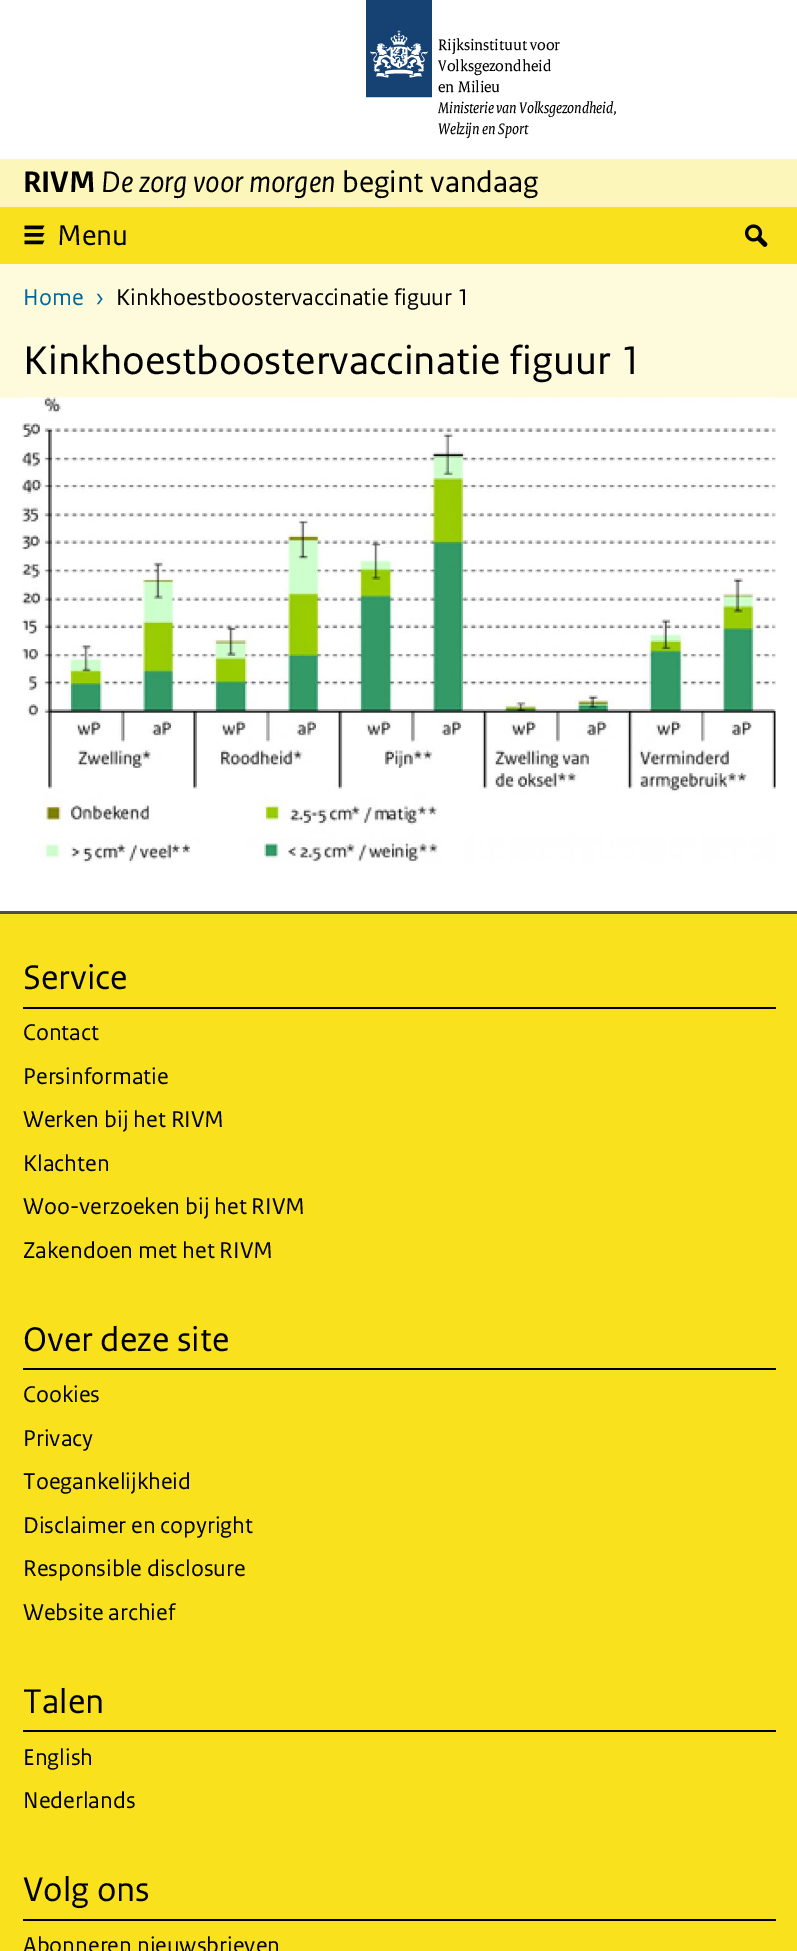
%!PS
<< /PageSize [797 1951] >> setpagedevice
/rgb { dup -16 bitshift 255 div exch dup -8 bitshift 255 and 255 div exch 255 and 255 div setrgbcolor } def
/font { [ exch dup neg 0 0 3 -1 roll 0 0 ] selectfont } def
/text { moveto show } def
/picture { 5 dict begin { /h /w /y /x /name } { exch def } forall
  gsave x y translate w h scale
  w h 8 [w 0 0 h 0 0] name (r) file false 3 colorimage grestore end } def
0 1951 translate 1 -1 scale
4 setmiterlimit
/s1 { /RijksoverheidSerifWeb-Regular 16.5 font 16#000000 rgb } def
/s2 { /RijksoverheidSerifWeb-Italic 16.5 font 16#000000 rgb } def
/s3 { /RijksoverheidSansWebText-Bold 31.25 font 16#000000 rgb } def
/s4 { /RijksoverheidSansWebText-Italic 31.25 font 16#000000 rgb } def
/s5 { /RijksoverheidSansWebText-Regular 31.25 font 16#000000 rgb } def
/s6 { /RijksoverheidSansWebText-Regular 30 font 16#000000 rgb } def
/s7 { /RijksoverheidSansWebText-Regular 24 font 16#01689B rgb } def
/s8 { /RijksoverheidSansWebText-Regular 24 font 16#000000 rgb } def
/s9 { /RijksoverheidSansWebText-Regular 42 font 16#000000 rgb } def
/s10 { /RijksoverheidSansWebText-Regular 36 font 16#000000 rgb } def
16#FFFFFF rgb
0 0 797 1951 rectfill
(pic1.raw) 366 0 66 98 picture
s1
(Rijksinstituut voor) 438 50 text
(Volksgezondheid) 438 71 text
(en Milieu) 438 92 text
s2
(Ministerie van Volksgezondheid,) 438 113 text
(Welzijn en Sport) 438 134 text
16#FDF6BB rgb
0 159 797 48 rectfill
s3
(RIVM) 23 192 text
s4
(De zorg voor morgen) 101 192 text
s5
(begint vandaag) 342 192 text
16#F9E11E rgb
0 207 797 57 rectfill
(pic2.raw) 24 225 21 20 picture
s6
(Menu) 57 245 text
(pic3.raw) 745 224 23 23 picture
16#FEFBDD rgb
0 264 797 134 rectfill
s7
(Home) 23 305 text
(›) 95 305 text
s8
(Kinkhoestboostervaccinatie figuur 1) 116 305 text
s9
(Kinkhoestboostervaccinatie figuur 1) 23 374 text
(pic4.raw) 22 397 754 466 picture
16#F9E11E rgb
0 914 797 1037 rectfill
16#4E4E4E rgb
0 911 797 3 rectfill
16#000000 rgb
23 1007 753 2 rectfill
s10
(Service) 23 989 text
s8
(Contact) 23 1040 text
(Persinformatie) 23 1084 text
(Werken bij het RIVM) 23 1127 text
(Klachten) 23 1171 text
(Woo-verzoeken bij het RIVM) 23 1214 text
(Zakendoen met het RIVM) 23 1258 text
23 1368 753 2 rectfill
s10
(Over deze site) 23 1351 text
s8
(Cookies) 23 1402 text
(Privacy) 23 1446 text
(Toegankelijkheid) 23 1489 text
(Disclaimer en copyright) 23 1533 text
(Responsible disclosure) 23 1576 text
(Website archief) 23 1620 text
23 1730 753 2 rectfill
s10
(Talen) 23 1713 text
s8
(English) 23 1765 text
(Nederlands) 23 1808 text
23 1919 753 2 rectfill
s10
(Volg ons) 23 1901 text
s8
(Abonneren nieuwsbrieven) 23 1953 text
showpage
